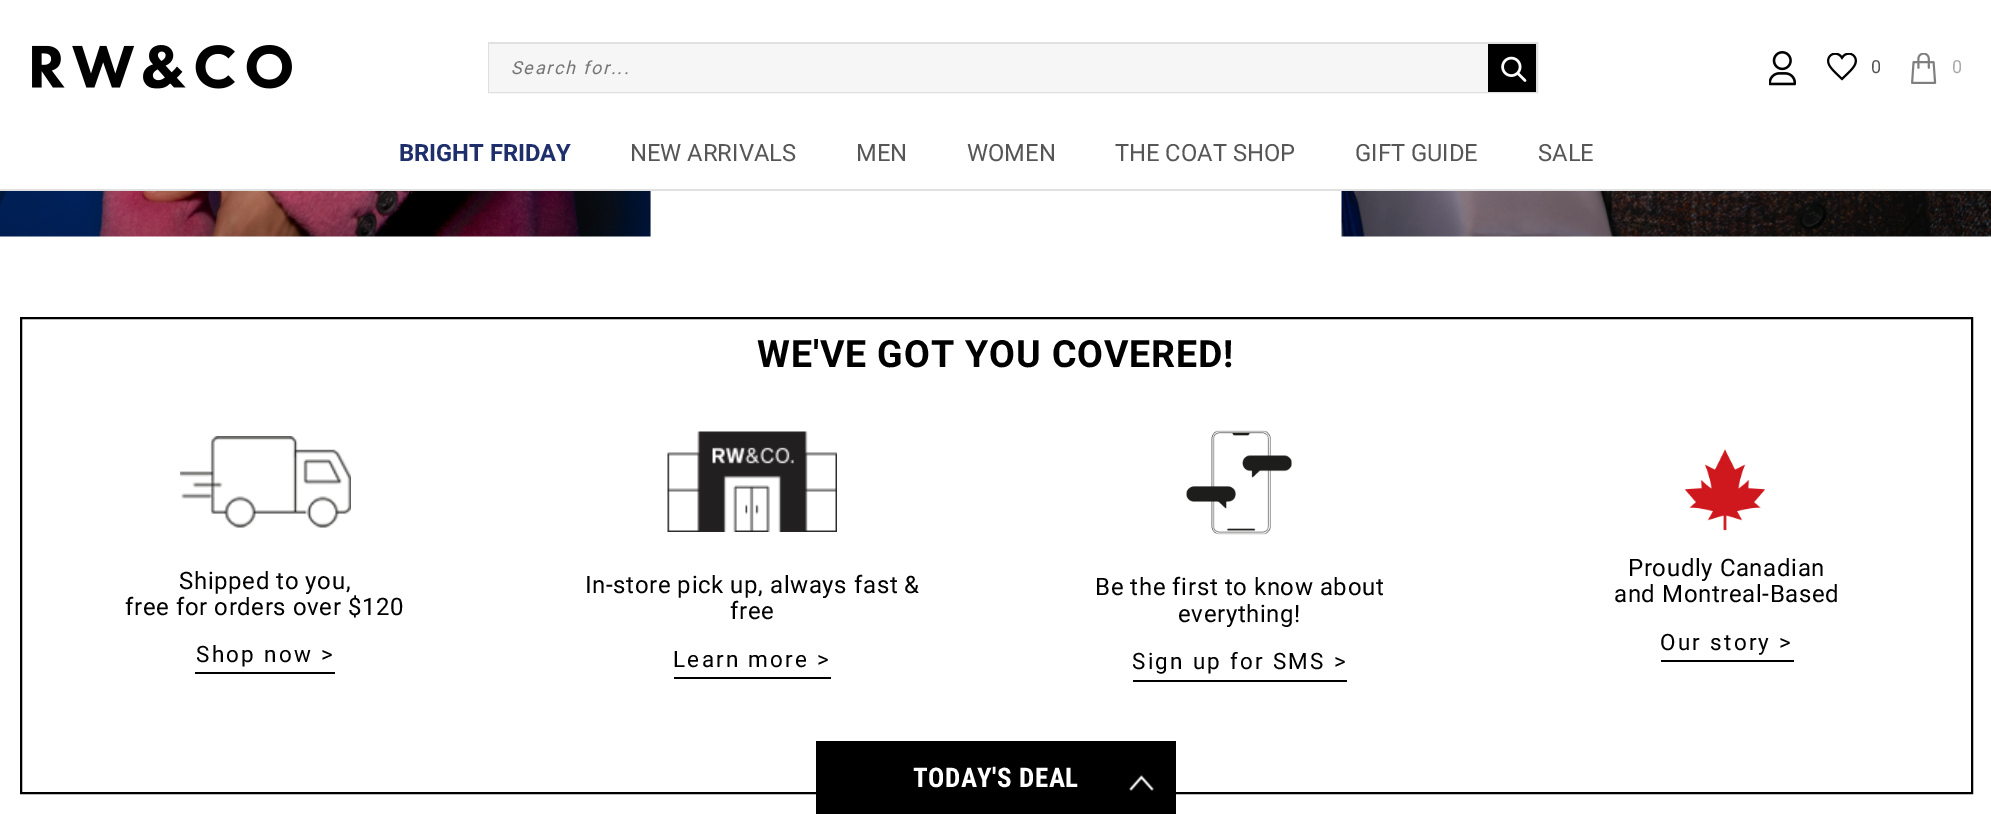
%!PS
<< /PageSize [1991 814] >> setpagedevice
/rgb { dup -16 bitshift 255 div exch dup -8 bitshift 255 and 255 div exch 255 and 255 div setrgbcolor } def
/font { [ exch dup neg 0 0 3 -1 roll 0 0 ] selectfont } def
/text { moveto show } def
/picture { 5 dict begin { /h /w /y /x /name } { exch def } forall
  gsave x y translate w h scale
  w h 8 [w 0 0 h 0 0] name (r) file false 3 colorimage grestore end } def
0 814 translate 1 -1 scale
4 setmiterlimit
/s1 { /Roboto-Regular 18 font 16#565656 rgb } def
/s2 { /Roboto-Regular 18 font 16#ABABAB rgb } def
/s3 { /Roboto-Bold 23.75 font 16#1E2F6B rgb } def
/s4 { /Roboto-Regular 23.75 font 16#565656 rgb } def
16#FFFFFF rgb
0 0 1991 814 rectfill
16#E0E0E0 rgb
0 189 1991 2 rectfill
(pic1.raw) 32 45 260 44 picture
2 setlinewidth
489 43 1048 49 rectstroke
16#F6F6F6 rgb
489 44 999 48 rectfill
/Roboto-Italic 18 font
16#757575 rgb
511 74 moveto 1.75 0 (Search for...) ashow
16#000000 rgb
1488 44 48 48 rectfill
(pic2.raw) 1501 56 26 26 picture
(pic3.raw) 1769 51 27 35 picture
(pic4.raw) 1827 53 30 28 picture
s1
(0) 1871 73 text
(pic5.raw) 1911 53 26 31 picture
s2
(0) 1952 73 text
s3
(BRIGHT FRIDAY) 399 161 text
s4
(NEW ARRIVALS) 630 161 text
(MEN) 856 161 text
(WOMEN) 967 161 text
(THE COAT SHOP) 1115 161 text
(GIFT GUIDE) 1355 161 text
(SALE) 1538 161 text
(pic6.raw) 0 191 1991 46 picture
16#000000 rgb
21 318 1951 475 rectstroke
/Roboto-Bold 37.5 font
757 367 moveto 0.9 0 (WE'VE GOT YOU COVERED!) ashow
(pic7.raw) 180 436 171 92 picture
/Roboto-Regular 24 font
179 589 moveto 0.6 0 (Shipped to you,) ashow
125 615 moveto 0.6 0 (free for orders over $120) ashow
195 672 140 2 rectfill
/Roboto-Regular 22.5 font
196 662 moveto 2.25 0 (Shop now >) ashow
(pic8.raw) 667 431 170 101 picture
/Roboto-Regular 24 font
585 593 moveto 0.6 0 (In-store pick up, always fast &) ashow
730 619 moveto 0.6 0 (free) ashow
674 677 157 2 rectfill
/Roboto-Regular 22.5 font
673 667 moveto 2.25 0 (Learn more >) ashow
(pic9.raw) 1186 430 106 105 picture
/Roboto-Regular 24 font
1095 595 moveto 0.6 0 (Be the first to know about) ashow
1178 622 moveto 0.6 0 (everything!) ashow
1133 680 214 2 rectfill
/Roboto-Regular 22.5 font
1132 669 moveto 2.25 0 (Sign up for SMS >) ashow
(pic10.raw) 1685 449 80 82 picture
/Roboto-Regular 24 font
1628 576 moveto 0.6 0 (Proudly Canadian) ashow
1614 602 moveto 0.6 0 (and Montreal-Based) ashow
1661 660 133 2 rectfill
/Roboto-Regular 22.5 font
1660 650 moveto 2.25 0 (Our story >) ashow
816 741 360 73 rectfill
/RobotoCondensed-Bold 27 font
16#FFFFFF rgb
913 787 moveto 0.5 0 (TODAY'S DEAL) ashow
(pic11.raw) 1129 775 25 16 picture
showpage
